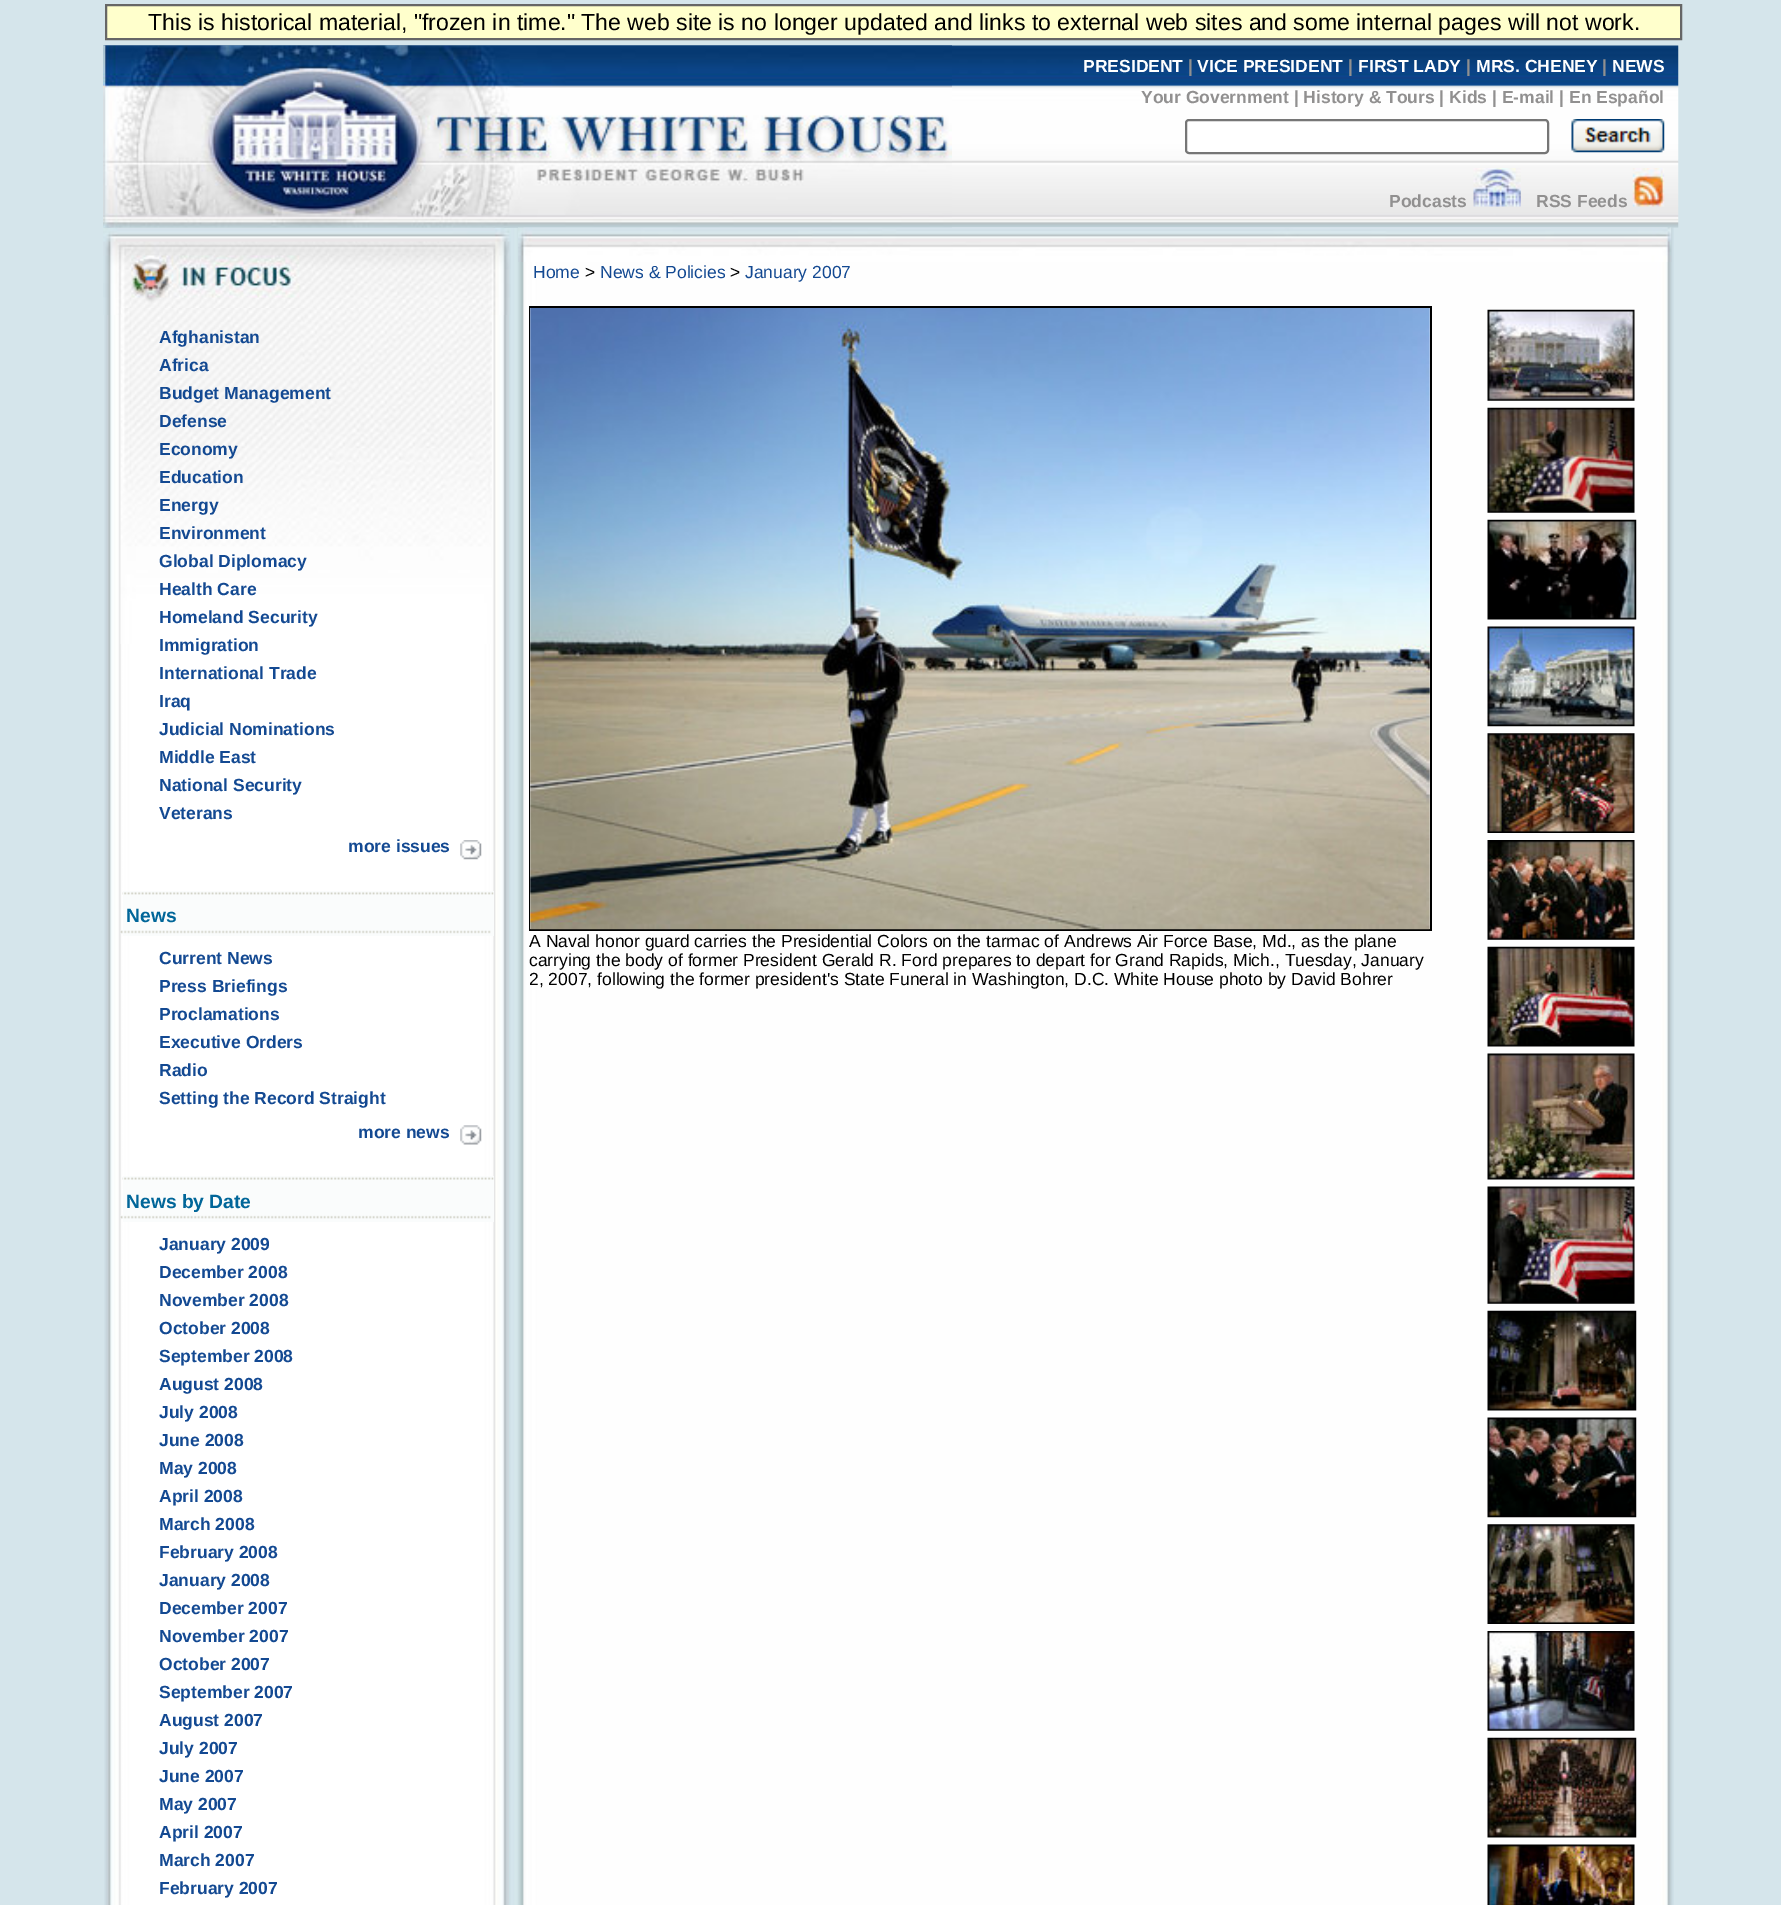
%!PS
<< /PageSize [1781 1905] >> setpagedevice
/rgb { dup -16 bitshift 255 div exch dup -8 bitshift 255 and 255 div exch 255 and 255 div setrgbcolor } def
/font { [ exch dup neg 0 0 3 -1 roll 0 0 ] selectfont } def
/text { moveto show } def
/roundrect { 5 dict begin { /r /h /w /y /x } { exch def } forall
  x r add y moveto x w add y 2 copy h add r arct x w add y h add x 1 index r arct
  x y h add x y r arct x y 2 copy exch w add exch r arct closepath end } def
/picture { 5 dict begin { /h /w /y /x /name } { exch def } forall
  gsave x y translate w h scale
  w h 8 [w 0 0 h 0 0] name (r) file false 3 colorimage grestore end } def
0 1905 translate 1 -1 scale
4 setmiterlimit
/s1 { /LiberationSans-Regular 23.1 font 16#000000 rgb } def
/s2 { /LiberationSans-Bold 17.5 font 16#FFFFFF rgb } def
/s3 { /LiberationSans-Bold 17.5 font 16#919090 rgb } def
/s4 { /LiberationSans-Bold 17.5 font 16#134992 rgb } def
/s5 { /LiberationSans-Bold 19.25 font 16#006699 rgb } def
/s6 { /LiberationSans-Regular 17.5 font 16#134992 rgb } def
/s7 { /LiberationSans-Regular 17.5 font 16#000000 rgb } def
16#D5E5EB rgb
0 0 1781 1905 rectfill
16#FFFFCC rgb
106 5 moveto 1681 5 lineto 1681 39 lineto 106 39 lineto closepath gsave fill grestore
16#666666 rgb
2 setlinewidth
stroke
s1
(This is historical material, "frozen in time.") 148 30 text
(The web site is no longer updated and links to external web sites and some internal pages will not work.) 581 30 text
(pic6.raw) 104 227 1570 1678 picture
(pic8.raw) 107 227 402 1678 picture
(pic9.raw) 103 227 408 88 picture
(pic1.raw) 103 45 1576 183 picture
(pic2.raw) 103 45 849 183 picture
s2
(PRESIDENT) 1083 72 text
s3
(|) 1188 72 text
s2
(VICE PRESIDENT) 1197 72 text
s3
(|) 1348 72 text
s2
(FIRST LADY) 1358 72 text
s3
(|) 1466 72 text
s2
(MRS. CHENEY) 1476 72 text
s3
(|) 1602 72 text
s2
(NEWS) 1612 72 text
s3
(Your Government | History & Tours | Kids | E-mail | En Español) 1141 103 text
16#FFFFFF rgb
1186 120 362 33 3 roundrect gsave fill grestore
16#767676 rgb
stroke
(pic3.raw) 1571 119 94 34 picture
s3
(Podcasts) 1389 207 text
(pic4.raw) 1473 168 48 39 picture
(RSS Feeds) 1536 207 text
(pic5.raw) 1632 168 33 39 picture
(pic7.raw) 518 227 1154 35 picture
(pic10.raw) 120 308 372 336 picture
s4
(Afghanistan) 159 343 text
(Africa) 159 371 text
(Budget Management) 159 399 text
(Defense) 159 427 text
(Economy) 159 455 text
(Education) 159 483 text
(Energy) 159 511 text
(Environment) 159 539 text
(Global Diplomacy) 159 567 text
(Health Care) 159 595 text
(Homeland Security) 159 623 text
(Immigration) 159 651 text
(International Trade) 159 679 text
(Iraq) 159 707 text
(Judicial Nominations) 159 735 text
(Middle East) 159 763 text
(National Security) 159 791 text
(Veterans) 159 819 text
(more issues) 348 852 text
(pic11.raw) 460 840 22 20 picture
16#FAFCFC rgb
123 891 371 45 rectfill
(pic12.raw) 122 892 372 3 picture
s5
(News) 126 922 text
(pic13.raw) 120 930 371 4 picture
s4
(Current News) 159 964 text
(Press Briefings) 159 992 text
(Proclamations) 159 1020 text
(Executive Orders) 159 1048 text
(Radio) 159 1076 text
(Setting the Record Straight) 159 1104 text
(more news) 358 1138 text
(pic14.raw) 460 1125 22 20 picture
16#FAFCFC rgb
123 1176 371 46 rectfill
(pic15.raw) 122 1177 372 3 picture
s5
(News by Date) 126 1208 text
(pic16.raw) 120 1215 371 4 picture
s4
(January 2009) 159 1250 text
(December 2008) 159 1278 text
(November 2008) 159 1306 text
(October 2008) 159 1334 text
(September 2008) 159 1362 text
(August 2008) 159 1390 text
(July 2008) 159 1418 text
(June 2008) 159 1446 text
(May 2008) 159 1474 text
(April 2008) 159 1502 text
(March 2008) 159 1530 text
(February 2008) 159 1558 text
(January 2008) 159 1586 text
(December 2007) 159 1614 text
(November 2007) 159 1642 text
(October 2007) 159 1670 text
(September 2007) 159 1698 text
(August 2007) 159 1726 text
(July 2007) 159 1754 text
(June 2007) 159 1782 text
(May 2007) 159 1810 text
(April 2007) 159 1838 text
(March 2007) 159 1866 text
(February 2007) 159 1894 text
s6
(Home) 533 278 text
s7
(>) 585 278 text
s6
(News & Policies) 600 278 text
s7
(>) 730 278 text
s6
(January 2007) 745 278 text
16#000000 rgb
529 306 903 625 rectfill
(pic17.raw) 530 308 900 622 picture
(A Naval honor guard carries the Presidential Colors on the tarmac of Andrews Air Force Base, Md., as the plane) 529 947 text
(carrying the body of former President Gerald R. Ford prepares to depart for Grand Rapids, Mich., Tuesday, January) 529 966 text
(2, 2007, following the former president's State Funeral in Washington, D.C. White House photo by David Bohrer) 529 985 text
(pic18.raw) 1487 309 148 92 picture
(pic19.raw) 1487 407 148 106 picture
(pic20.raw) 1487 519 150 101 picture
(pic21.raw) 1487 626 148 101 picture
(pic22.raw) 1487 733 148 100 picture
(pic23.raw) 1487 840 148 100 picture
(pic24.raw) 1487 946 148 101 picture
(pic25.raw) 1487 1053 148 127 picture
(pic26.raw) 1487 1186 148 118 picture
(pic27.raw) 1487 1310 150 101 picture
(pic28.raw) 1487 1417 150 101 picture
(pic29.raw) 1487 1524 148 100 picture
(pic30.raw) 1487 1631 148 100 picture
(pic31.raw) 1487 1737 150 101 picture
(pic32.raw) 1487 1844 148 61 picture
showpage
